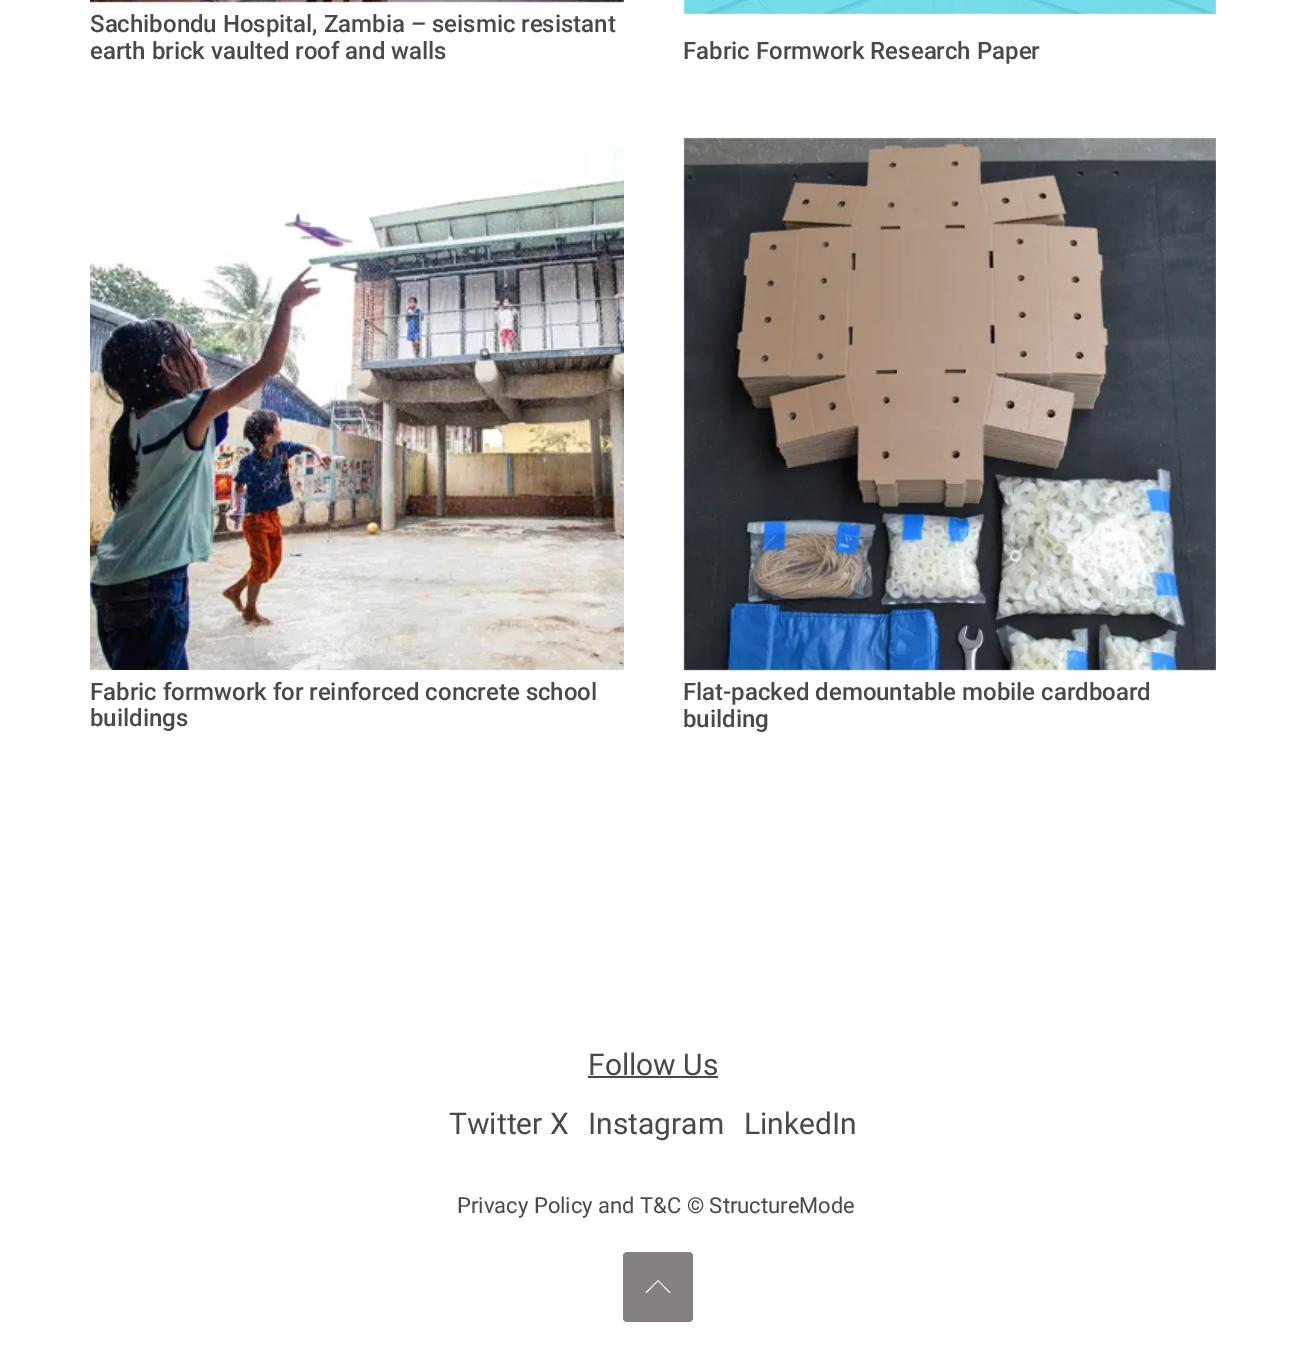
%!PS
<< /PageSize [1305 1351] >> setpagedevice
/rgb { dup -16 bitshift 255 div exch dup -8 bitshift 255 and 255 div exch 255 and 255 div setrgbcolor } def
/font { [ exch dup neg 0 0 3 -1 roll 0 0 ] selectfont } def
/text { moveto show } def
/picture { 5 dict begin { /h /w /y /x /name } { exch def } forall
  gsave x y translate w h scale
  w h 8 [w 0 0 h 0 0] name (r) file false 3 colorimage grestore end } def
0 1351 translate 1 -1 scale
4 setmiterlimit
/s1 { /Roboto-Medium 24 font 16#494949 rgb } def
/s2 { /Roboto-Regular 30 font 16#494949 rgb } def
/s3 { /Roboto-Regular 22 font 16#494949 rgb } def
16#FFFFFF rgb
0 0 1305 1351 rectfill
(pic1.raw) 90 0 534 3 picture
s1
(Sachibondu Hospital, Zambia – seismic resistant) 90 32 text
(earth brick vaulted roof and walls) 90 59 text
(pic2.raw) 683 0 533 14 picture
(Fabric Formwork Research Paper) 683 59 text
(pic3.raw) 90 145 534 525 picture
(Fabric formwork for reinforced concrete school) 90 700 text
(buildings) 90 726 text
(pic4.raw) 683 137 533 534 picture
(Flat-packed demountable mobile cardboard) 683 700 text
(building) 683 727 text
s2
(Follow Us) 588 1075 text
588 1076 130 2 rectfill
(Twitter X) 449 1134 text
(Instagram) 588 1134 text
(LinkedIn) 744 1134 text
s3
(Privacy Policy and T&C © StructureMode) 457 1213 text
16#858181 rgb
689 1322 moveto 627 1322 lineto 625 1322 623 1320 623 1318 curveto 623 1256 lineto 623 1254 625 1252 627 1252 curveto 689 1252 lineto 691 1252 693 1254 693 1256 curveto 693 1318 lineto 693 1320 691 1322 689 1322 curveto closepath fill
16#FFFFFF rgb
658 1280 moveto 670.5 1292.5 lineto 669.5 1293 lineto 658 1281 lineto 646.5 1293 lineto 645.5 1292.5 lineto closepath fill
showpage
